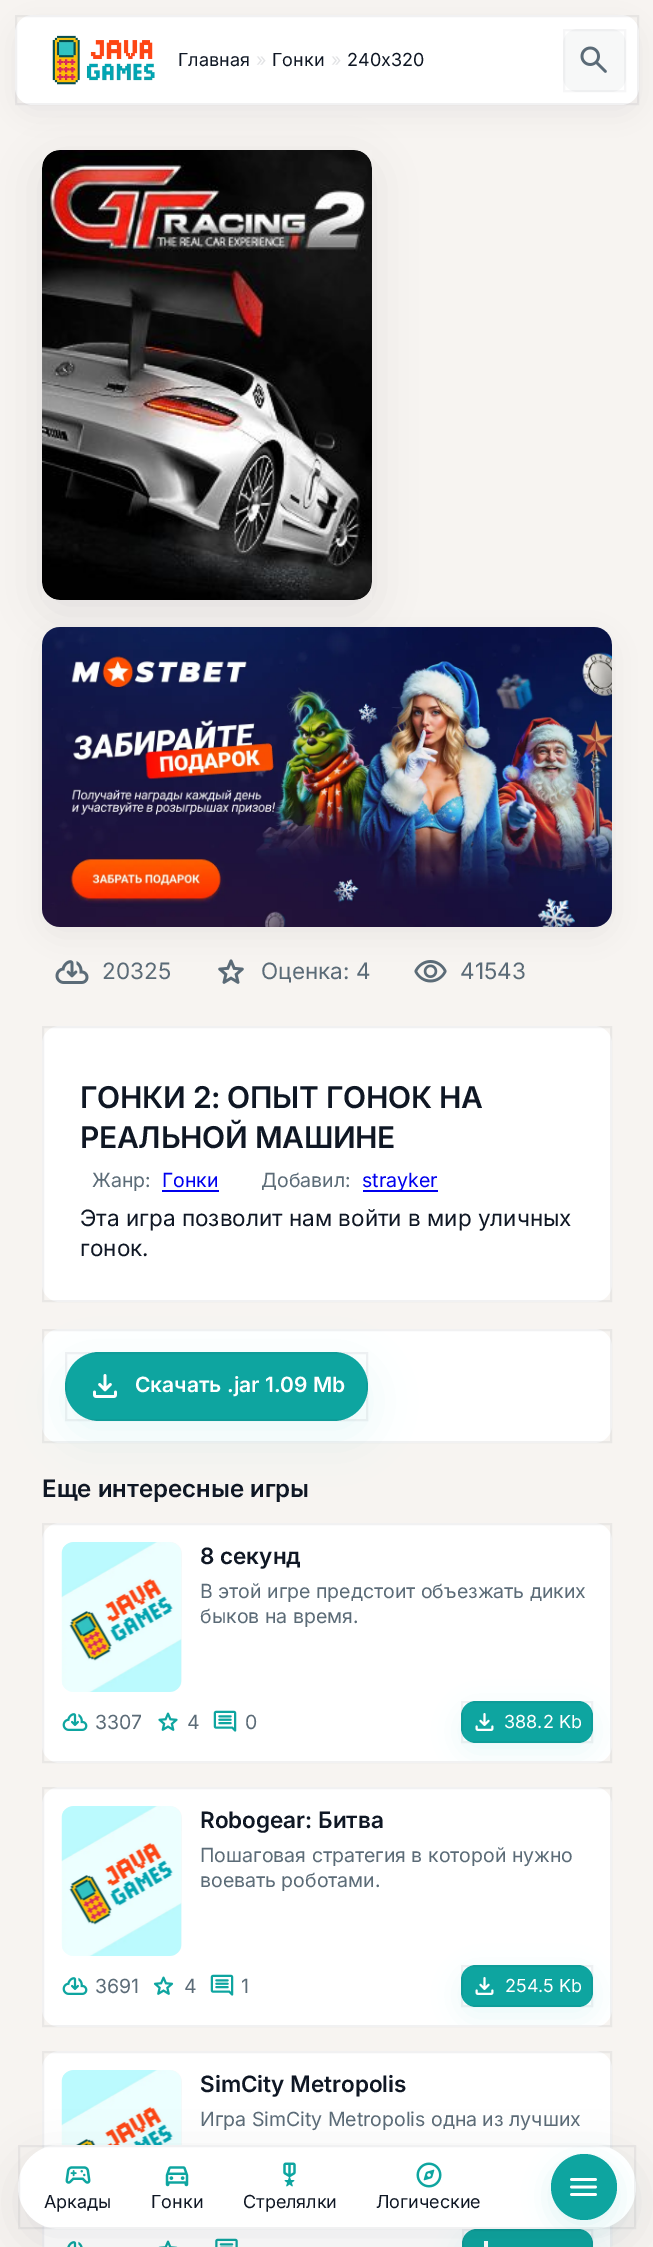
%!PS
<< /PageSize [653 2247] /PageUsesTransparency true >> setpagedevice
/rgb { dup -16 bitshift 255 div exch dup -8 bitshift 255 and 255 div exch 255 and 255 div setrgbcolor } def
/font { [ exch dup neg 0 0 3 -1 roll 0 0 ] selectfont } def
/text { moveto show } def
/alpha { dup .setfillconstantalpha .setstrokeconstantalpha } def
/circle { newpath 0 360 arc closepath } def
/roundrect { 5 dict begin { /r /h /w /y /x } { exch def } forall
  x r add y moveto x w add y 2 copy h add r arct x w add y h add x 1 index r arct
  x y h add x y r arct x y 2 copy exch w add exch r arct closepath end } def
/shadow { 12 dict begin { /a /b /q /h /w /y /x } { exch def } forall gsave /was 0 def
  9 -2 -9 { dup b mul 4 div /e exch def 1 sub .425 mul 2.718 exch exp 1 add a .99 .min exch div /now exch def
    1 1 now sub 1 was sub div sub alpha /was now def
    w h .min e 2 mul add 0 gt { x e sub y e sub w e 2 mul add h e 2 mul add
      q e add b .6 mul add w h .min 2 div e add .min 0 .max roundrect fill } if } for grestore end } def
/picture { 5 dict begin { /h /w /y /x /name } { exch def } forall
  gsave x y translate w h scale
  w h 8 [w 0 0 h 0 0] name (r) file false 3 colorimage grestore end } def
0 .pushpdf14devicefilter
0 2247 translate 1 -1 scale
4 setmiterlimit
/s1 { /Inter-Regular 18 font 16#0F1724 rgb } def
/s2 { /Inter-Regular 18 font 16#E2E3E5 rgb } def
/s3 { /Inter-Regular 22.5 font 16#5B6B77 rgb } def
/s4 { /Inter-Regular 19.5 font 16#5B6B77 rgb } def
/s5 { /Inter-Regular 19.5 font 16#0000EE rgb } def
/s6 { /Inter-Regular 22.5 font 16#0F1724 rgb } def
/s7 { /Inter-SemiBold 21 font 16#FFFFFF rgb } def
/s8 { /Inter-SemiBold 24 font 16#0F1724 rgb } def
/s9 { /Inter-SemiBold 22.5 font 16#0F1724 rgb } def
/s10 { /Inter-Regular 18 font 16#FFFFFF rgb } def
16#F7F4F1 rgb
0 0 653 2247 rectfill
16#0F172A rgb
15 24 624 90 18 13.5 0.06 shadow
16#FFFFFF rgb
15 15 624 90 18 roundrect fill
0.06 alpha
16#0F172A rgb
2 setlinewidth
16 16 622 88 rectstroke
1 alpha
(pic1.raw) 52 35 103 50 picture
s1
(Главная) 178 66 text
s2
(») 256 66 text
s1
(Гонки) 272 66 text
s2
(») 331 66 text
s1
(240х320) 347 66 text
16#F7F8F8 rgb
563 29 63 63 15 roundrect fill
0.04 alpha
16#0F172A rgb
564 30 61 61 rectstroke
1 alpha
(pic2.raw) 580 46 27 27 picture
16#020617 rgb
42 636 570 300 18 15 0.06 shadow
(pic4.raw) 42 627 570 300 picture
42 162 330 450 18 21 0.08 shadow
(pic3.raw) 42 150 330 450 picture
(pic5.raw) 55 960 34 24 picture
s3
(20325) 102 979 text
(pic6.raw) 218 959 26 25 picture
(Оценка: 4) 261 979 text
(pic7.raw) 414 960 33 23 picture
(41543) 460 979 text
16#FFFFFF rgb
42 1026 570 276 18 roundrect fill
0.06 alpha
16#0F172A rgb
43 1027 568 274 rectstroke
/Inter-SemiBold 30 font
1 alpha
16#0F1724 rgb
80 1108 moveto -0.3 0 (ГОНКИ 2: ОПЫТ ГОНОК НА) ashow
80 1148 moveto -0.3 0 (РЕАЛЬНОЙ МАШИНЕ) ashow
s4
(Жанр:) 92 1187 text
s5
(Гонки) 162 1187 text
162 1190 57 2 rectfill
s4
(Добавил:) 261 1187 text
16#0000EE rgb
363 1190 75 2 rectfill
(strayker) 362 1187 text
s6
(Эта игра позволит нам войти в мир уличных) 80 1226 text
(гонок.) 80 1256 text
16#FFFFFF rgb
42 1329 570 114 18 roundrect fill
0.06 alpha
16#0F172A rgb
43 1330 568 112 rectstroke
1 alpha
16#0EA5A0 rgb
65 1367 303 69 34.5 22.5 0.08 shadow
65 1352 303 69 34.5 roundrect fill
0.06 alpha
16#0F172A rgb
66 1353 301 67 rectstroke
1 alpha
(pic8.raw) 93 1374 24 24 picture
s7
(Скачать .jar 1.09 Mb) 135 1392 text
s8
(Еще интересные игры) 42 1497 text
16#FFFFFF rgb
42 1523 570 240 18 roundrect fill
0.06 alpha
16#0F172A rgb
43 1524 568 238 rectstroke
1 alpha
gsave 62 1542 120 150 12 roundrect clip newpath
<< /ShadingType 2 /ColorSpace /DeviceRGB /Coords [122 1542 122 1692] /Extend [true true] /Function << /FunctionType 2 /Domain [0 1] /C0 [0.969 0.969 0.969] /C1 [0.98 0.98 0.98] /N 1 >> >> shfill grestore
(pic9.raw) 61 1542 121 150 picture
s9
(8 секунд) 200 1564 text
s4
(В этой игре предстоит объезжать диких) 200 1598 text
(быков на время.) 200 1623 text
(pic10.raw) 62 1713 26 18 picture
(3307) 95 1729 text
(pic11.raw) 158 1712 20 19 picture
(4) 187 1729 text
(pic12.raw) 213 1710 24 22 picture
(0) 245 1729 text
gsave
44 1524 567 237 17 roundrect clip newpath
16#0EA5A0 rgb
461 1710 132 42 15 13.5 0.08 shadow
grestore
16#0EA5A0 rgb
461 1701 132 42 15 roundrect fill
0.06 alpha
16#0F172A rgb
462 1702 130 40 rectstroke
1 alpha
(pic13.raw) 475 1713 19 18 picture
s10
(388.2 Kb) 504 1728 text
42 1787 570 240 18 roundrect fill
0.06 alpha
16#0F172A rgb
43 1788 568 238 rectstroke
1 alpha
gsave 62 1806 120 150 12 roundrect clip newpath
<< /ShadingType 2 /ColorSpace /DeviceRGB /Coords [122 1806 122 1956] /Extend [true true] /Function << /FunctionType 2 /Domain [0 1] /C0 [0.969 0.969 0.969] /C1 [0.98 0.98 0.98] /N 1 >> >> shfill grestore
(pic9.raw) 61 1806 121 150 picture
s9
(Robogear: Битва) 200 1828 text
s4
(Пошаговая стратегия в которой нужно) 200 1862 text
(воевать роботами.) 200 1887 text
(pic10.raw) 62 1977 26 18 picture
(3691) 95 1993 text
(pic14.raw) 153 1976 21 19 picture
(4) 184 1993 text
(pic12.raw) 210 1974 24 22 picture
(1) 241 1993 text
gsave
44 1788 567 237 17 roundrect clip newpath
16#0EA5A0 rgb
461 1974 132 42 15 13.5 0.08 shadow
grestore
16#0EA5A0 rgb
461 1965 132 42 15 roundrect fill
0.06 alpha
16#0F172A rgb
462 1966 130 40 rectstroke
1 alpha
(pic13.raw) 475 1977 19 18 picture
s10
(254.5 Kb) 505 1992 text
42 2051 570 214 18 roundrect fill
0.06 alpha
16#0F172A rgb
43 2052 568 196 rectstroke
1 alpha
gsave 62 2070 120 150 12 roundrect clip newpath
<< /ShadingType 2 /ColorSpace /DeviceRGB /Coords [122 2070 122 2220] /Extend [true true] /Function << /FunctionType 2 /Domain [0 1] /C0 [0.969 0.969 0.969] /C1 [0.98 0.98 0.98] /N 1 >> >> shfill grestore
(pic15.raw) 61 2070 121 75 picture
s9
(SimCity Metropolis) 200 2092 text
s4
(Игра SimCity Metropolis одна из лучших) 200 2126 text
(pic16.raw) 67 2241 16 6 picture
(pic17.raw) 158 2240 20 7 picture
(pic18.raw) 215 2238 23 9 picture
16#0EA5A0 rgb
462 2238 131 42 15 13.5 0.08 shadow
462 2229 131 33 15 roundrect fill
0.06 alpha
16#0F172A rgb
463 2230 129 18 rectstroke
1 alpha
16#FFFFFF rgb
484 2241 4 6 rectfill
16#020617 rgb
18 2160 618 84 42 22.5 0.08 shadow
16#FFFFFF rgb
18 2145 618 84 42 roundrect fill
0.06 alpha
16#0F172A rgb
19 2146 616 82 rectstroke
1 alpha
(pic19.raw) 65 2166 26 18 picture
s1
(Аркады) 44 2208 text
(pic20.raw) 165 2166 24 21 picture
(Гонки) 151 2208 text
(pic21.raw) 283 2162 13 25 picture
(Стрелялки) 243 2208 text
(pic22.raw) 416 2162 26 26 picture
(Логические) 376 2208 text
16#0EA5A0 rgb
551 2163 66 66 33 13.5 0.12 shadow
584 2187 33 circle fill
(pic23.raw) 570 2178 27 18 picture
.poppdf14devicefilter showpage
